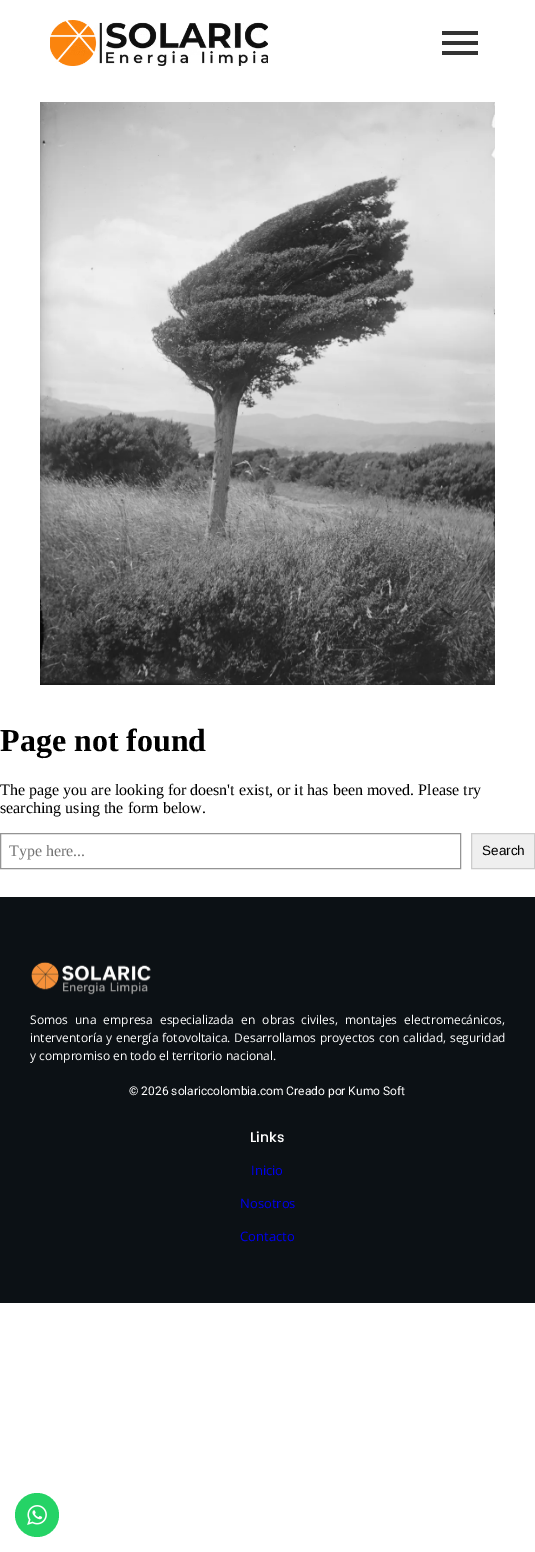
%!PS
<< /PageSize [535 1552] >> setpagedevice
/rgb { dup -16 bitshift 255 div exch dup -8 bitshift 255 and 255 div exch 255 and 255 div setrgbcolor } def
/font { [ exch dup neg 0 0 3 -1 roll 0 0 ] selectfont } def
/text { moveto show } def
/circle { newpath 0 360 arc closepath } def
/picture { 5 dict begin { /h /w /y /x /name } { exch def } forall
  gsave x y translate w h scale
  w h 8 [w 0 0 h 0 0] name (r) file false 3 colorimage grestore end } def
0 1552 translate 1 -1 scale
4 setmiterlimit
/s1 { /LiberationSerif-Bold 32 font 16#000000 rgb } def
/s2 { /LiberationSerif-Regular 16 font 16#000000 rgb } def
/s3 { /LiberationSerif-Regular 16 font 16#757575 rgb } def
/s4 { /LiberationSans-Regular 13.5 font 16#000000 rgb } def
/s5 { /OpenSans-Regular 12 font 16#FFFFFF rgb } def
/s6 { /Roboto-Regular 12 font 16#FFFFFF rgb } def
/s7 { /Poppins-Medium 14 font 16#FFFFFF rgb } def
/s8 { /OpenSans-Regular 13 font 16#0000EE rgb } def
16#FFFFFF rgb
0 0 535 1552 rectfill
(pic1.raw) 50 20 218 46 picture
16#333333 rgb
442 31 36 4 rectfill
442 41 36 4 rectfill
442 51 36 4 rectfill
(pic2.raw) 40 102 455 583 picture
s1
(Page not found) 0 751 text
s2
(The page you are looking for doesn't exist, or it has been moved. Please try) 0 795 text
(searching using the form below.) 0 813 text
16#949494 rgb
0.5 833.5 460 35 rectstroke
s3
(Type here...) 9 856 text
16#EFEFEF rgb
471.5 833.5 moveto 534.5 833.5 lineto 534.5 868.5 lineto 471.5 868.5 lineto closepath gsave fill grestore
16#CCCCCC rgb
stroke
s4
(Search) 482 855 text
16#0C1115 rgb
0 897 535 406 rectfill
(pic3.raw) 31 962 120 33 picture
/OpenSans-Regular 12 font
16#FFFFFF rgb
30 1024 moveto 4 0 32 (Somos una empresa especializada en obras civiles, montajes electromecánicos,) widthshow
30 1042 moveto 0.75 0 32 (interventoría y energía fotovoltaica. Desarrollamos proyectos con calidad, seguridad) widthshow
(y compromiso en todo el territorio nacional.) 30 1060 text
s6
(© 2026 solariccolombia.com Creado por Kumo Soft) 129 1095 text
s7
(Links) 250 1142 text
s8
(Inicio) 251 1175 text
(Nosotros) 240 1208 text
(Contacto) 240 1241 text
16#25D366 rgb
37 1515 22 circle fill
(pic4.raw) 27 1505 20 20 picture
showpage
